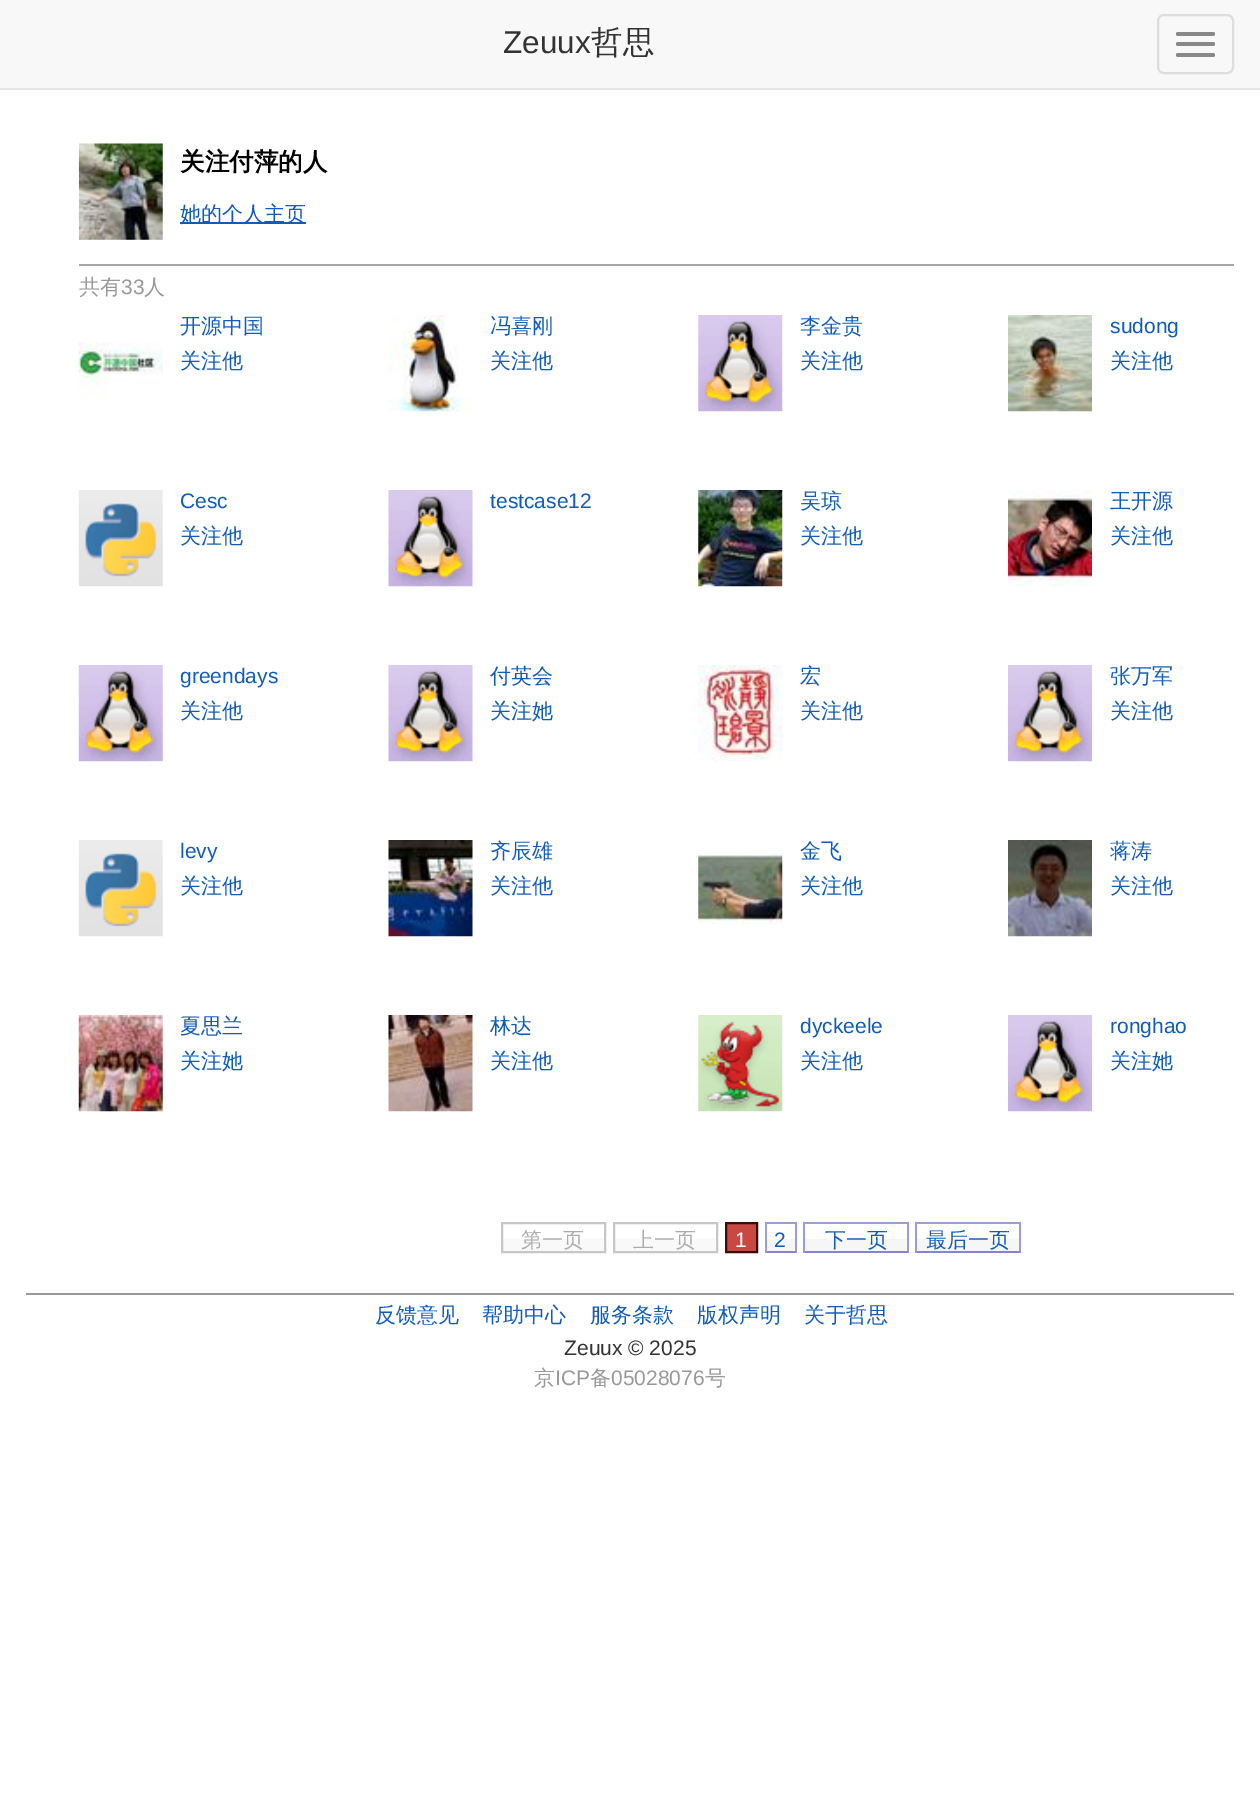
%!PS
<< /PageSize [1260 1806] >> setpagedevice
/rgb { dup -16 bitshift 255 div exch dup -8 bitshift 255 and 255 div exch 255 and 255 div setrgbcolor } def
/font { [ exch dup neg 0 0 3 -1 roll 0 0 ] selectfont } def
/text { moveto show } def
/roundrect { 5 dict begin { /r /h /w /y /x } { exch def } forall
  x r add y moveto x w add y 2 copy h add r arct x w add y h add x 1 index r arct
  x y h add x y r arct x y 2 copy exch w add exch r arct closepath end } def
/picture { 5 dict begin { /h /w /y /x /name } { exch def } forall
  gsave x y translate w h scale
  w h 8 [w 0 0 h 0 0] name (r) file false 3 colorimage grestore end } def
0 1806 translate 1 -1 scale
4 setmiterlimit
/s1 { /LiberationSans-Regular 31.5 font 16#333333 rgb } def
/s2 { /WenQuanYiZenHei-Medium 31.5 font 16#333333 rgb } def
/s3 { /WenQuanYiZenHei-Bold 24.5 font 16#000000 rgb } def
/s4 { /WenQuanYiZenHei-Medium 21 font 16#105CB6 rgb } def
/s5 { /WenQuanYiZenHei-Medium 21 font 16#999999 rgb } def
/s6 { /LiberationSans-Regular 21 font 16#999999 rgb } def
/s7 { /LiberationSans-Regular 21 font 16#105CB6 rgb } def
/s8 { /WenQuanYiZenHei-Medium 21 font 16#ACACAC rgb } def
/s9 { /LiberationSans-Regular 21 font 16#FFFFFF rgb } def
/s10 { /LiberationSans-Regular 21 font 16#333333 rgb } def
16#FFFFFF rgb
0 0 1260 1806 rectfill
16#F8F8F8 rgb
0 0 1260 88 rectfill
16#E7E7E7 rgb
0 88 1260 2 rectfill
s1
(Zeuux) 503 53 text
s2
(哲思) 591 53 text
16#DDDDDD rgb
2 setlinewidth
1158 15 75 58 6 roundrect stroke
16#888888 rgb
1176 32 39 4 2 roundrect fill
1176 42 39 4 2 roundrect fill
1176 53 39 4 2 roundrect fill
(pic1.raw) 78 143 85 97 picture
s3
(关注付萍的人) 180 170 text
16#105CB6 rgb
180 222 126 2 rectfill
s4
(她的个人主页) 180 221 text
16#A6A6A6 rgb
79 264 1155 2 rectfill
s5
(共有) 79 294 text
s6
(33) 121 294 text
s5
(人) 144 294 text
s4
(开源中国) 180 333 text
(pic2.raw) 78 342 85 57 picture
(关注他) 180 368 text
(pic3.raw) 388 315 85 97 picture
(冯喜刚) 490 333 text
(关注他) 490 368 text
(pic4.raw) 698 315 85 97 picture
(李金贵) 800 333 text
(关注他) 800 368 text
(pic5.raw) 1008 315 84 97 picture
s7
(sudong) 1110 333 text
s4
(关注他) 1110 368 text
(pic6.raw) 78 490 85 97 picture
s7
(Cesc) 180 508 text
s4
(关注他) 180 543 text
(pic7.raw) 388 490 85 97 picture
s7
(testcase12) 490 508 text
(pic8.raw) 698 490 85 97 picture
s4
(吴琼) 800 508 text
(关注他) 800 543 text
(pic9.raw) 1008 490 84 96 picture
(王开源) 1110 508 text
(关注他) 1110 543 text
(pic10.raw) 78 665 85 97 picture
s7
(greendays) 180 683 text
s4
(关注他) 180 718 text
(pic7.raw) 388 665 85 97 picture
(付英会) 490 683 text
(关注她) 490 718 text
(pic11.raw) 698 665 85 96 picture
(宏) 800 683 text
(关注他) 800 718 text
(pic12.raw) 1008 665 84 97 picture
(张万军) 1110 683 text
(关注他) 1110 718 text
(pic6.raw) 78 840 85 97 picture
s7
(levy) 180 858 text
s4
(关注他) 180 893 text
(pic13.raw) 388 840 85 97 picture
(齐辰雄) 490 858 text
(关注他) 490 893 text
(金飞) 800 858 text
(pic14.raw) 698 853 85 72 picture
(关注他) 800 893 text
(pic15.raw) 1008 840 84 97 picture
(蒋涛) 1110 858 text
(关注他) 1110 893 text
(pic16.raw) 78 1015 85 97 picture
(夏思兰) 180 1033 text
(关注她) 180 1068 text
(pic17.raw) 388 1015 85 97 picture
(林达) 490 1033 text
(关注他) 490 1068 text
(pic18.raw) 698 1015 85 97 picture
s7
(dyckeele) 800 1033 text
s4
(关注他) 800 1068 text
(pic12.raw) 1008 1015 84 97 picture
s7
(ronghao) 1110 1033 text
s4
(关注她) 1110 1068 text
16#F9F9F9 rgb
503 1239 101 12 rectfill
16#C7C7C7 rgb
502 1223 103 29 rectstroke
s8
(第一页) 521 1247 text
16#F9F9F9 rgb
615 1239 101 12 rectfill
16#C7C7C7 rgb
614 1223 103 29 rectstroke
s8
(上一页) 633 1247 text
16#C94841 rgb
726 1223 moveto 757 1223 lineto 757 1252 lineto 726 1252 lineto closepath gsave fill grestore
16#390D0B rgb
stroke
s9
(1) 735 1247 text
16#F6F6F6 rgb
767 1239 28 12 rectfill
16#9C9CDA rgb
765 1222 31 2 rectfill
795 1222 2 31 rectfill
16#8484CF rgb
765 1251 31 2 rectfill
16#9C9CDA rgb
765 1222 2 31 rectfill
s7
(2) 774 1247 text
16#F6F6F6 rgb
805 1239 102 12 rectfill
16#9C9CDA rgb
803 1222 105 2 rectfill
907 1222 2 31 rectfill
16#8484CF rgb
803 1251 105 2 rectfill
16#9C9CDA rgb
803 1222 2 31 rectfill
s4
(下一页) 825 1247 text
16#F6F6F6 rgb
917 1239 102 12 rectfill
16#9C9CDA rgb
915 1222 105 2 rectfill
1019 1222 2 31 rectfill
16#8484CF rgb
915 1251 105 2 rectfill
16#9C9CDA rgb
915 1222 2 31 rectfill
s4
(最后一页) 926 1247 text
16#999999 rgb
26 1293 1208 2 rectfill
s4
(反馈意见) 375 1322 text
(帮助中心) 482 1322 text
(服务条款) 590 1322 text
(版权声明) 697 1322 text
(关于哲思) 804 1322 text
s10
(Zeuux © 2025) 564 1355 text
s5
(京) 534 1385 text
s6
(ICP) 555 1385 text
s5
(备) 590 1385 text
s6
(05028076) 611 1385 text
s5
(号) 705 1385 text
showpage
